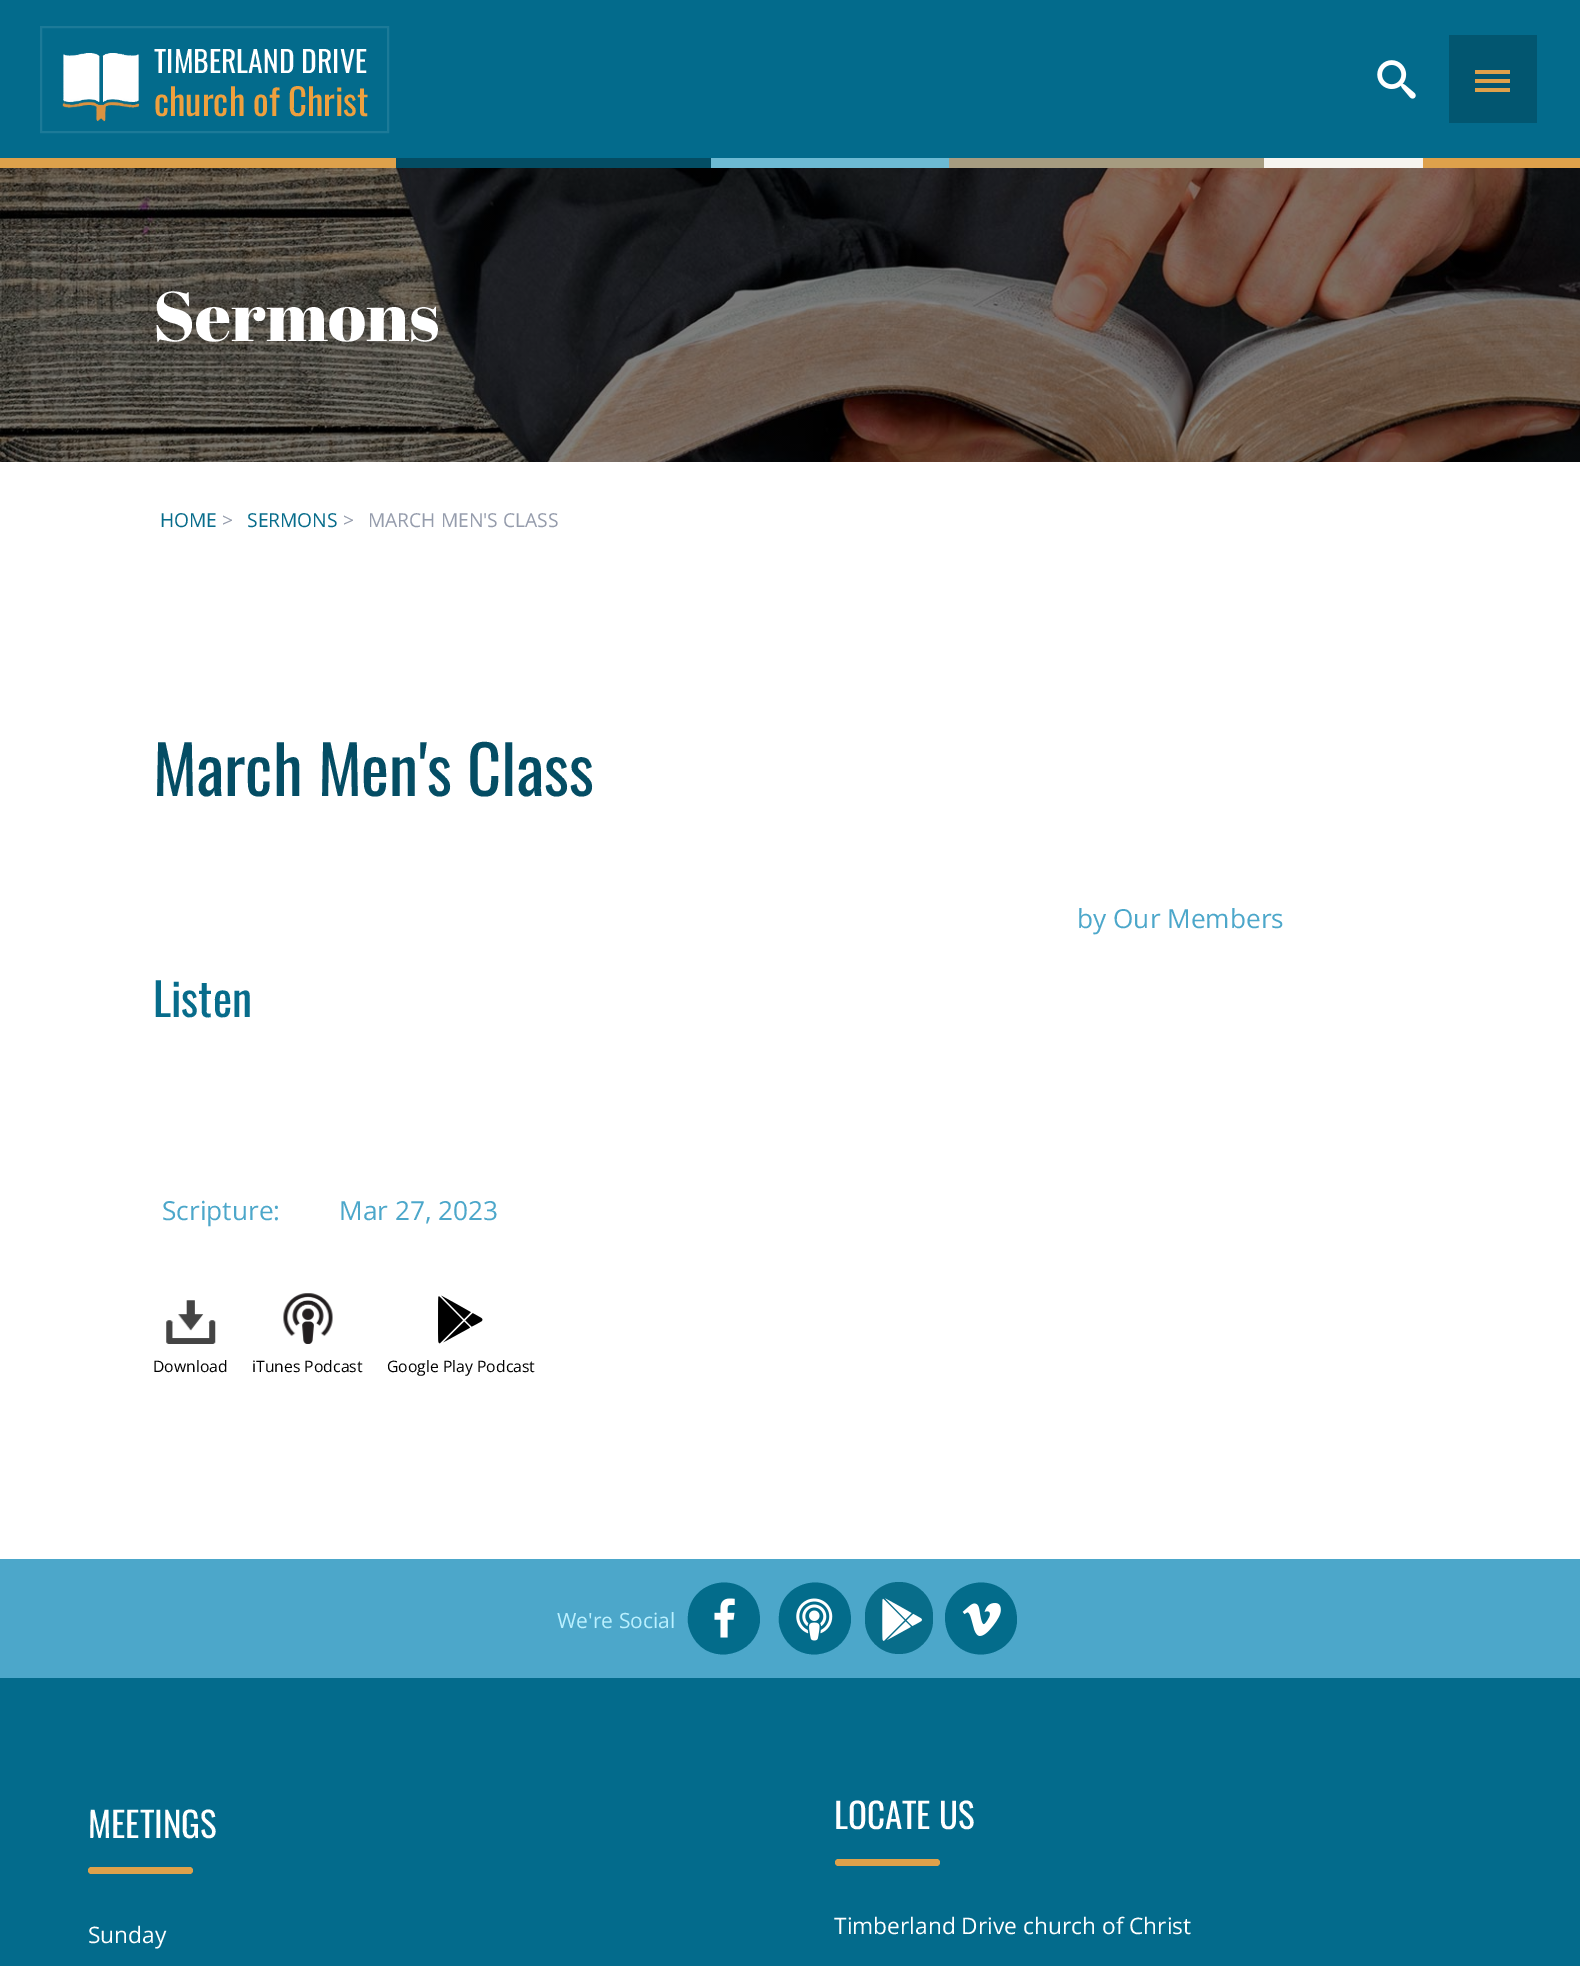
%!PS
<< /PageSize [1580 1966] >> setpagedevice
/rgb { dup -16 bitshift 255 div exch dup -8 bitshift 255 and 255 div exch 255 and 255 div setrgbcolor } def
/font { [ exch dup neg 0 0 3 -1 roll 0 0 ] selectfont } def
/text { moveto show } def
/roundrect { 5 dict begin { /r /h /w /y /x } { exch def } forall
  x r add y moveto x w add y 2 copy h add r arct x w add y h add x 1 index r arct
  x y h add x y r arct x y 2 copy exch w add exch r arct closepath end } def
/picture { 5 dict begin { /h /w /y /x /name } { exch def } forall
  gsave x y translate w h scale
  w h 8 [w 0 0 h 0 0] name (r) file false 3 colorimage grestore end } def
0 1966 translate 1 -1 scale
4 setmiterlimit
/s1 { /Oswald-Regular 29.75 font 16#FFFFFF rgb } def
/s2 { /Oswald-Regular 36.75 font 16#EEA03E rgb } def
/s3 { /AbrilFatface-Regular 70 font 16#FFFFFF rgb } def
/s4 { /OpenSans-Regular 19.25 font 16#076C8B rgb } def
/s5 { /OpenSans-Regular 19.25 font 16#959CAC rgb } def
/s6 { /Oswald-Regular 66.5 font 16#044D64 rgb } def
/s7 { /OpenSans-Regular 26.25 font 16#4CA7CA rgb } def
/s8 { /Oswald-Regular 45.5 font 16#076C8B rgb } def
/s9 { /OpenSans-Regular 15.75 font 16#000000 rgb } def
/s10 { /OpenSans-Regular 21 font 16#BAF0FF rgb } def
/s11 { /Oswald-Regular 35 font 16#FFFFFF rgb } def
/s12 { /OpenSans-Regular 22.75 font 16#FFFFFF rgb } def
16#FFFFFF rgb
0 0 1580 1966 rectfill
16#036B8C rgb
0 0 1580 158 rectfill
(pic1.raw) 62 53 78 69 picture
16#1C7A98 rgb
2 setlinewidth
41 27 347 105 rectstroke
s1
(TIMBERLAND DRIVE) 154 73 text
s2
(church of Christ) 154 116 text
(pic2.raw) 1377 60 39 39 picture
16#025670 rgb
1449 35 88 88 rectfill
16#DEA14B rgb
1475 70 35 4 rectfill
1475 79 35 4 rectfill
1475 88 35 4 rectfill
0 158 396 10 rectfill
16#044D64 rgb
396 158 315 10 rectfill
16#6DBAD3 rgb
711 158 238 10 rectfill
16#A69C80 rgb
949 158 315 10 rectfill
16#F6F4EF rgb
1264 158 159 10 rectfill
16#DEA14B rgb
1423 158 157 10 rectfill
(pic3.raw) 0 168 1580 294 picture
s3
(Sermons) 153 341 text
s4
(HOME) 160 527 text
s5
(>) 222 527 text
s4
(SERMONS) 247 527 text
s5
(>) 343 527 text
(MARCH MEN'S CLASS) 368 527 text
s6
(March Men's Class) 153 796 text
s7
(by Our Members) 1077 928 text
s8
(Listen) 153 1017 text
s7
(Scripture:) 162 1220 text
(Mar 27, 2023) 339 1220 text
(pic4.raw) 166 1300 50 44 picture
s9
(Download) 153 1372 text
(pic5.raw) 283 1293 50 51 picture
(iTunes Podcast) 252 1372 text
(pic6.raw) 438 1295 45 49 picture
(Google Play Podcast) 387 1372 text
16#4CA7CA rgb
0 1559 1580 119 rectfill
s10
(We're Social) 557 1628 text
16#036C8B rgb
755 1600 moveto 759 1607 760 1614 760 1621 curveto 757 1656 710 1667 693 1637 curveto 689 1630 687 1623 688 1616 curveto 690 1581 737 1570 755 1600 curveto closepath fill
(pic7.raw) 714 1598 21 40 picture
846 1600 moveto 850 1607 851 1614 851 1621 curveto 848 1656 801 1667 784 1637 curveto 780 1630 778 1623 779 1616 curveto 781 1581 828 1570 846 1600 curveto closepath fill
(pic8.raw) 796 1598 37 43 picture
16#086D8A rgb
865 1582 68 72 34 roundrect fill
(pic9.raw) 882 1598 40 43 picture
16#036C8B rgb
1012 1600 moveto 1016 1607 1017 1614 1017 1621 curveto 1015 1656 968 1667 950 1637 curveto 946 1630 945 1623 945 1616 curveto 947 1581 994 1570 1012 1600 curveto closepath fill
(pic10.raw) 962 1603 39 33 picture
16#036B8C rgb
0 1678 1580 288 rectfill
s11
(MEETINGS) 88 1838 text
16#DEA14B rgb
88 1867 105 7 3.5 roundrect fill
s12
(Sunday) 88 1943 text
s11
(LOCATE US) 834 1829 text
16#DEA14B rgb
835 1859 105 7 3.5 roundrect fill
s12
(Timberland Drive church of Christ) 834 1934 text
showpage
